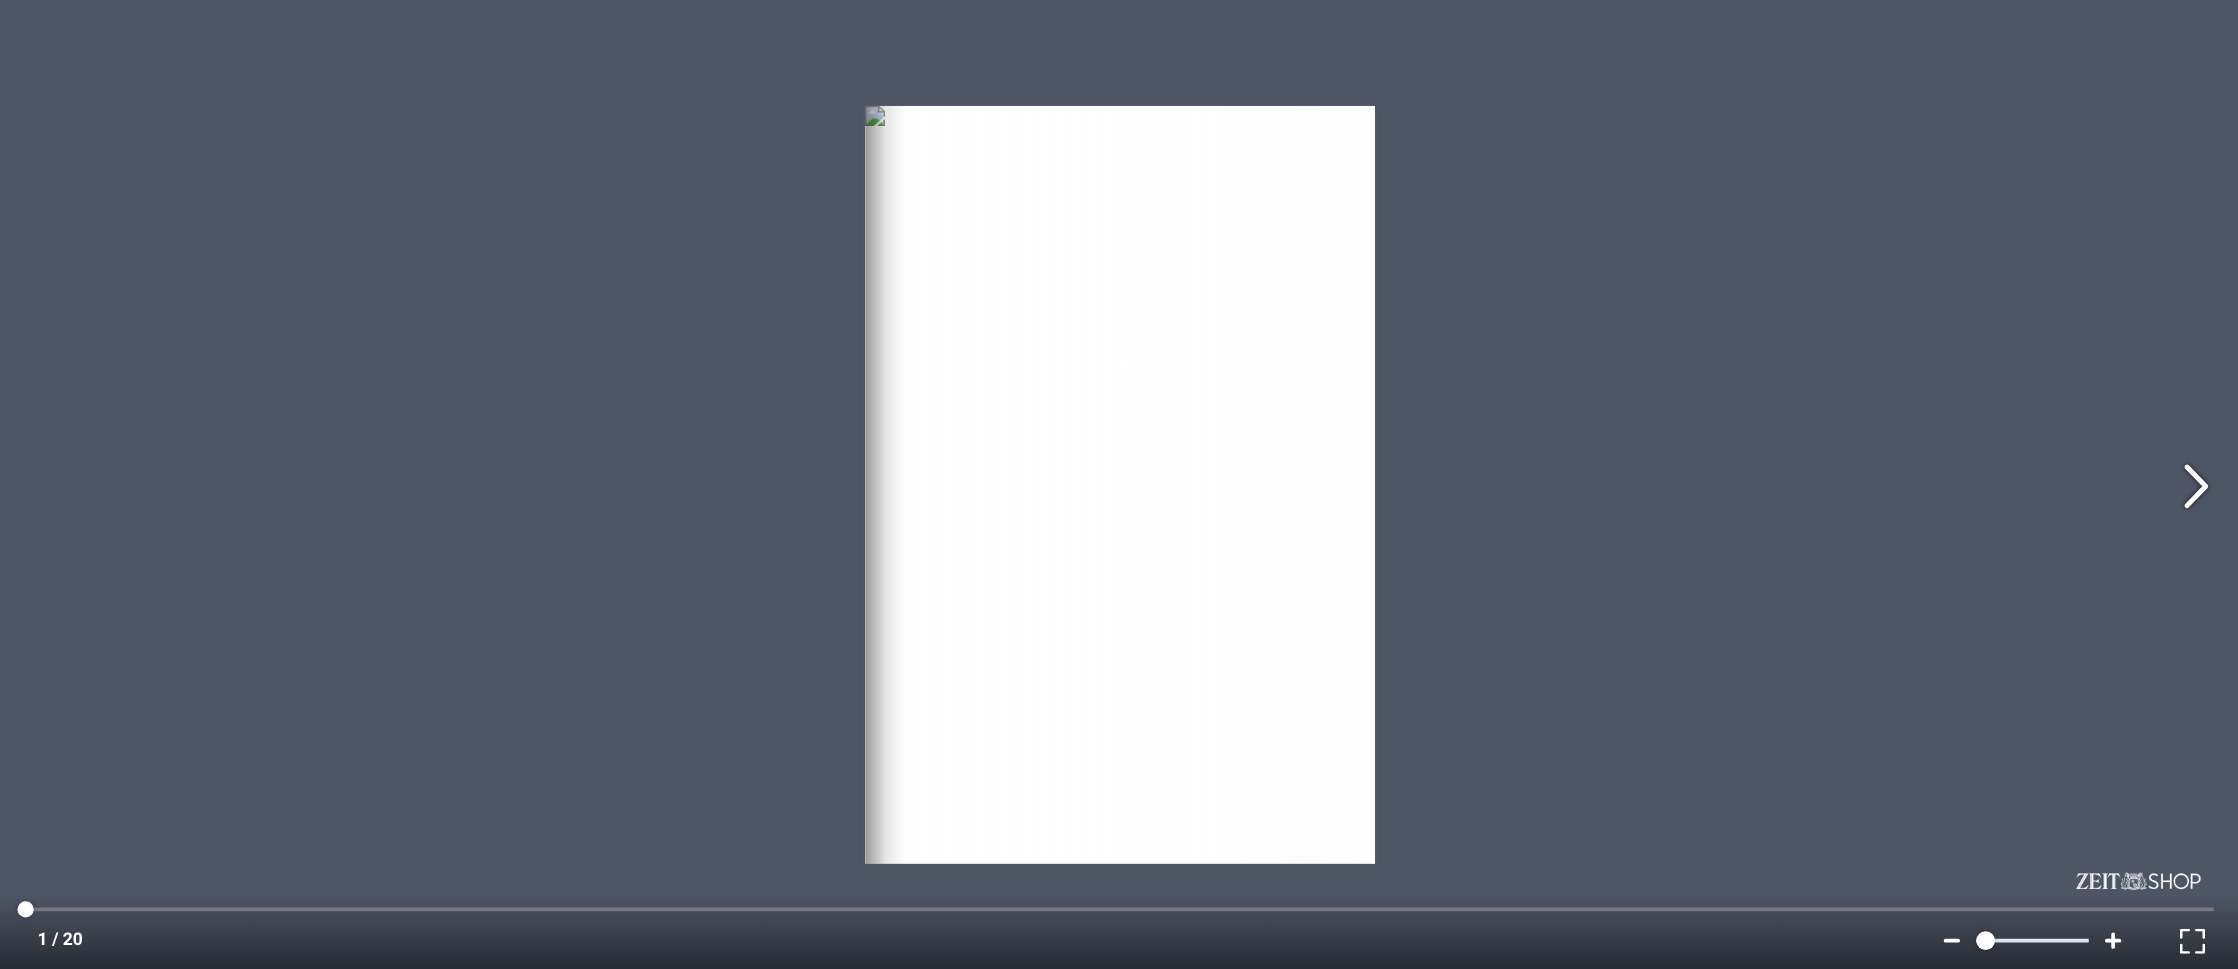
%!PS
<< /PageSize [2238 969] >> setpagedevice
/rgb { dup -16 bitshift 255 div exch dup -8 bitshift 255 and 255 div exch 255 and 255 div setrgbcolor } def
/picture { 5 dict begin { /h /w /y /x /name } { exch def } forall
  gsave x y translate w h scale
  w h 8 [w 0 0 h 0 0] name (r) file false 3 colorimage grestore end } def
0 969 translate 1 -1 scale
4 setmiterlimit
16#FFFFFF rgb
0 0 2238 969 rectfill
(pic1.raw) 0 0 2238 969 picture
showpage
